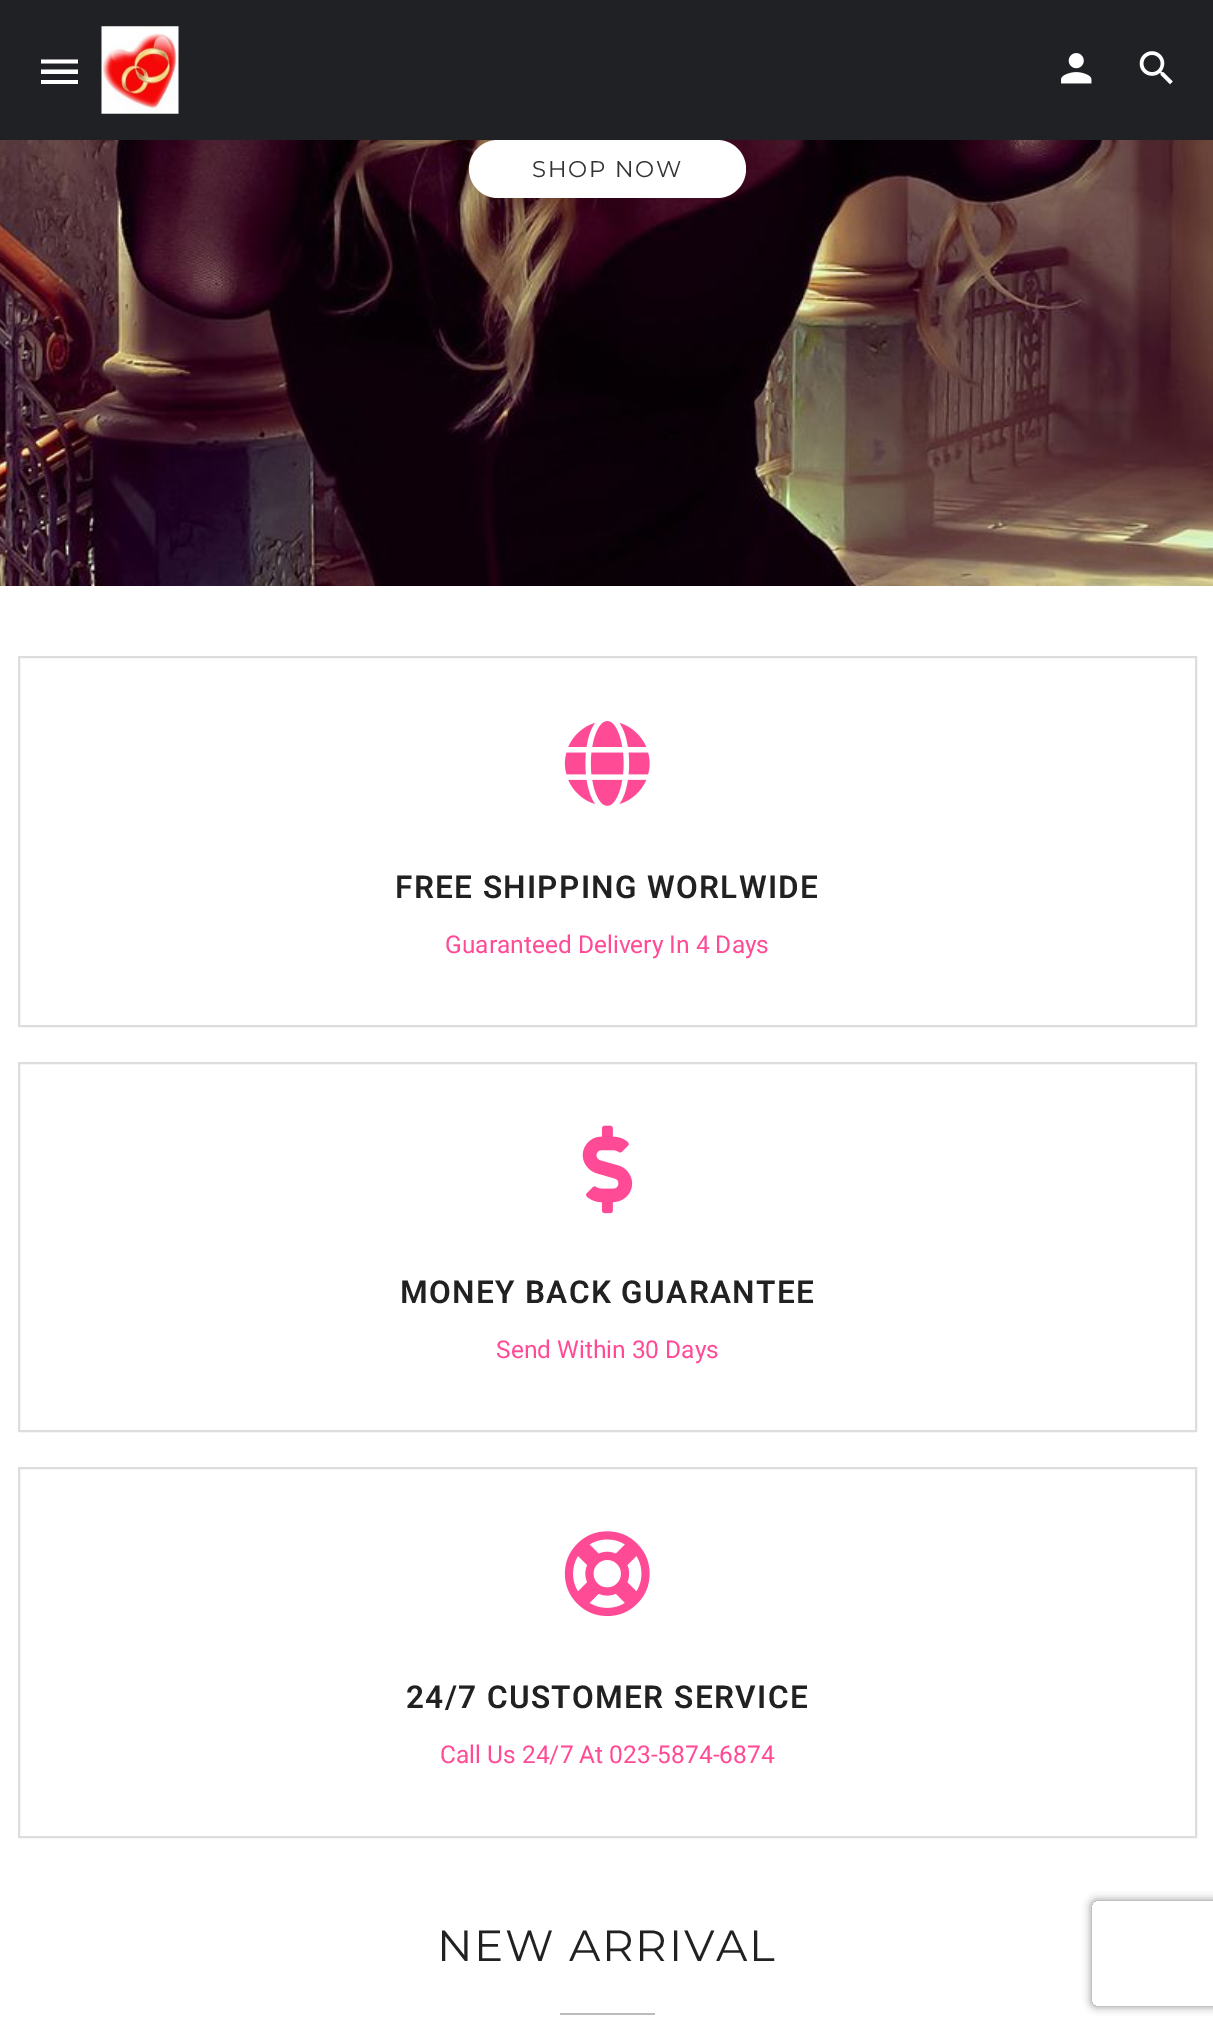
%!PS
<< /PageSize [1213 2029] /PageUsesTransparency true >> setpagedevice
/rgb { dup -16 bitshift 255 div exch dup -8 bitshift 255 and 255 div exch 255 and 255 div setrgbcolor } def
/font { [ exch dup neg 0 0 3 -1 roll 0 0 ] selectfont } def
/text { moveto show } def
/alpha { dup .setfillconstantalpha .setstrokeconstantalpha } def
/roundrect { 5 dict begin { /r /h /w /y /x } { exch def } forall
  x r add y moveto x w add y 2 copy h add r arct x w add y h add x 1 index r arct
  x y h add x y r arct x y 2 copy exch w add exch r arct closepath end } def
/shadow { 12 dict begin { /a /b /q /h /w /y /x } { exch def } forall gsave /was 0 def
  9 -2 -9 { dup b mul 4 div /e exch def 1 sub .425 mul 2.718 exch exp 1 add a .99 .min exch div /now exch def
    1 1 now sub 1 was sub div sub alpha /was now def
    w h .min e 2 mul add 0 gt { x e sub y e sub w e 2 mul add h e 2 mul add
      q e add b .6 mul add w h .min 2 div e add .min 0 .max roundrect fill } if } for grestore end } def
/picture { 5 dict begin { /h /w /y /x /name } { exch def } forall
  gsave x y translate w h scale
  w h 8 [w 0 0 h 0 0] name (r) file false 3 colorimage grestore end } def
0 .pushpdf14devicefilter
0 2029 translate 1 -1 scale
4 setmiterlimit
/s1 { /Roboto-Regular 24.5 font 16#FF4A96 rgb } def
16#FFFFFF rgb
0 0 1213 2029 rectfill
16#202125 rgb
0 0 1213 140 rectfill
16#FFFFFF rgb
41 59.5 moveto 78 59.5 lineto 78 63.5 lineto 41 63.5 lineto closepath 41 74 moveto 41 69.5 lineto 78 69.5 lineto 78 74 lineto closepath 41 84 moveto 41 80 lineto 78 80 lineto 78 84 lineto closepath fill
(pic1.raw) 101 26 78 88 picture
(pic2.raw) 1061 53 31 31 picture
(pic3.raw) 1139 51 34 34 picture
(pic4.raw) 0 140 1213 446 picture
469 140 277 58 29 roundrect fill
/Montserrat-Regular 22.75 font
16#333333 rgb
532 177 moveto 1.75 0 (SHOP NOW) ashow
16#DDDDDD rgb
2 setlinewidth
19 657 1177 369 rectstroke
(pic5.raw) 564 721 86 85 picture
/Roboto-SemiBold 31.5 font
16#212121 rgb
395 898 moveto 1.4 0 (FREE SHIPPING WORLWIDE) ashow
s1
(Guaranteed Delivery In 4 Days) 445 953 text
16#DDDDDD rgb
19 1063 1177 368 rectstroke
(pic6.raw) 582 1125 51 89 picture
/Roboto-SemiBold 31.5 font
16#212121 rgb
400 1303 moveto 1.4 0 (MONEY BACK GUARANTEE) ashow
s1
(Send Within 30 Days) 496 1358 text
16#DDDDDD rgb
19 1468 1177 369 rectstroke
(pic7.raw) 564 1531 86 86 picture
/Roboto-SemiBold 31.5 font
16#212121 rgb
406 1708 moveto 1.4 0 (24/7 CUSTOMER SERVICE) ashow
s1
(Call Us 24/7 At 023-5874-6874) 440 1763 text
/Montserrat-Regular 43.75 font
16#212121 rgb
437 1961 moveto 1.75 0 (NEW ARRIVAL) ashow
16#BBBBBB rgb
560 2013 95 2 rectfill
gsave
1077 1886 moveto 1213 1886 lineto 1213 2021 lineto 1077 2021 lineto closepath 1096 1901 moveto 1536 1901 lineto 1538 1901 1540 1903 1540 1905 curveto 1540 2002 lineto 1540 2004 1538 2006 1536 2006 curveto 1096 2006 lineto 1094 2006 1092 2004 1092 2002 curveto 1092 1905 lineto 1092 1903 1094 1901 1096 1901 curveto closepath eoclip newpath
16#808080 rgb
1092 1901 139 105 4 4.5 1 shadow
grestore
.poppdf14devicefilter showpage
